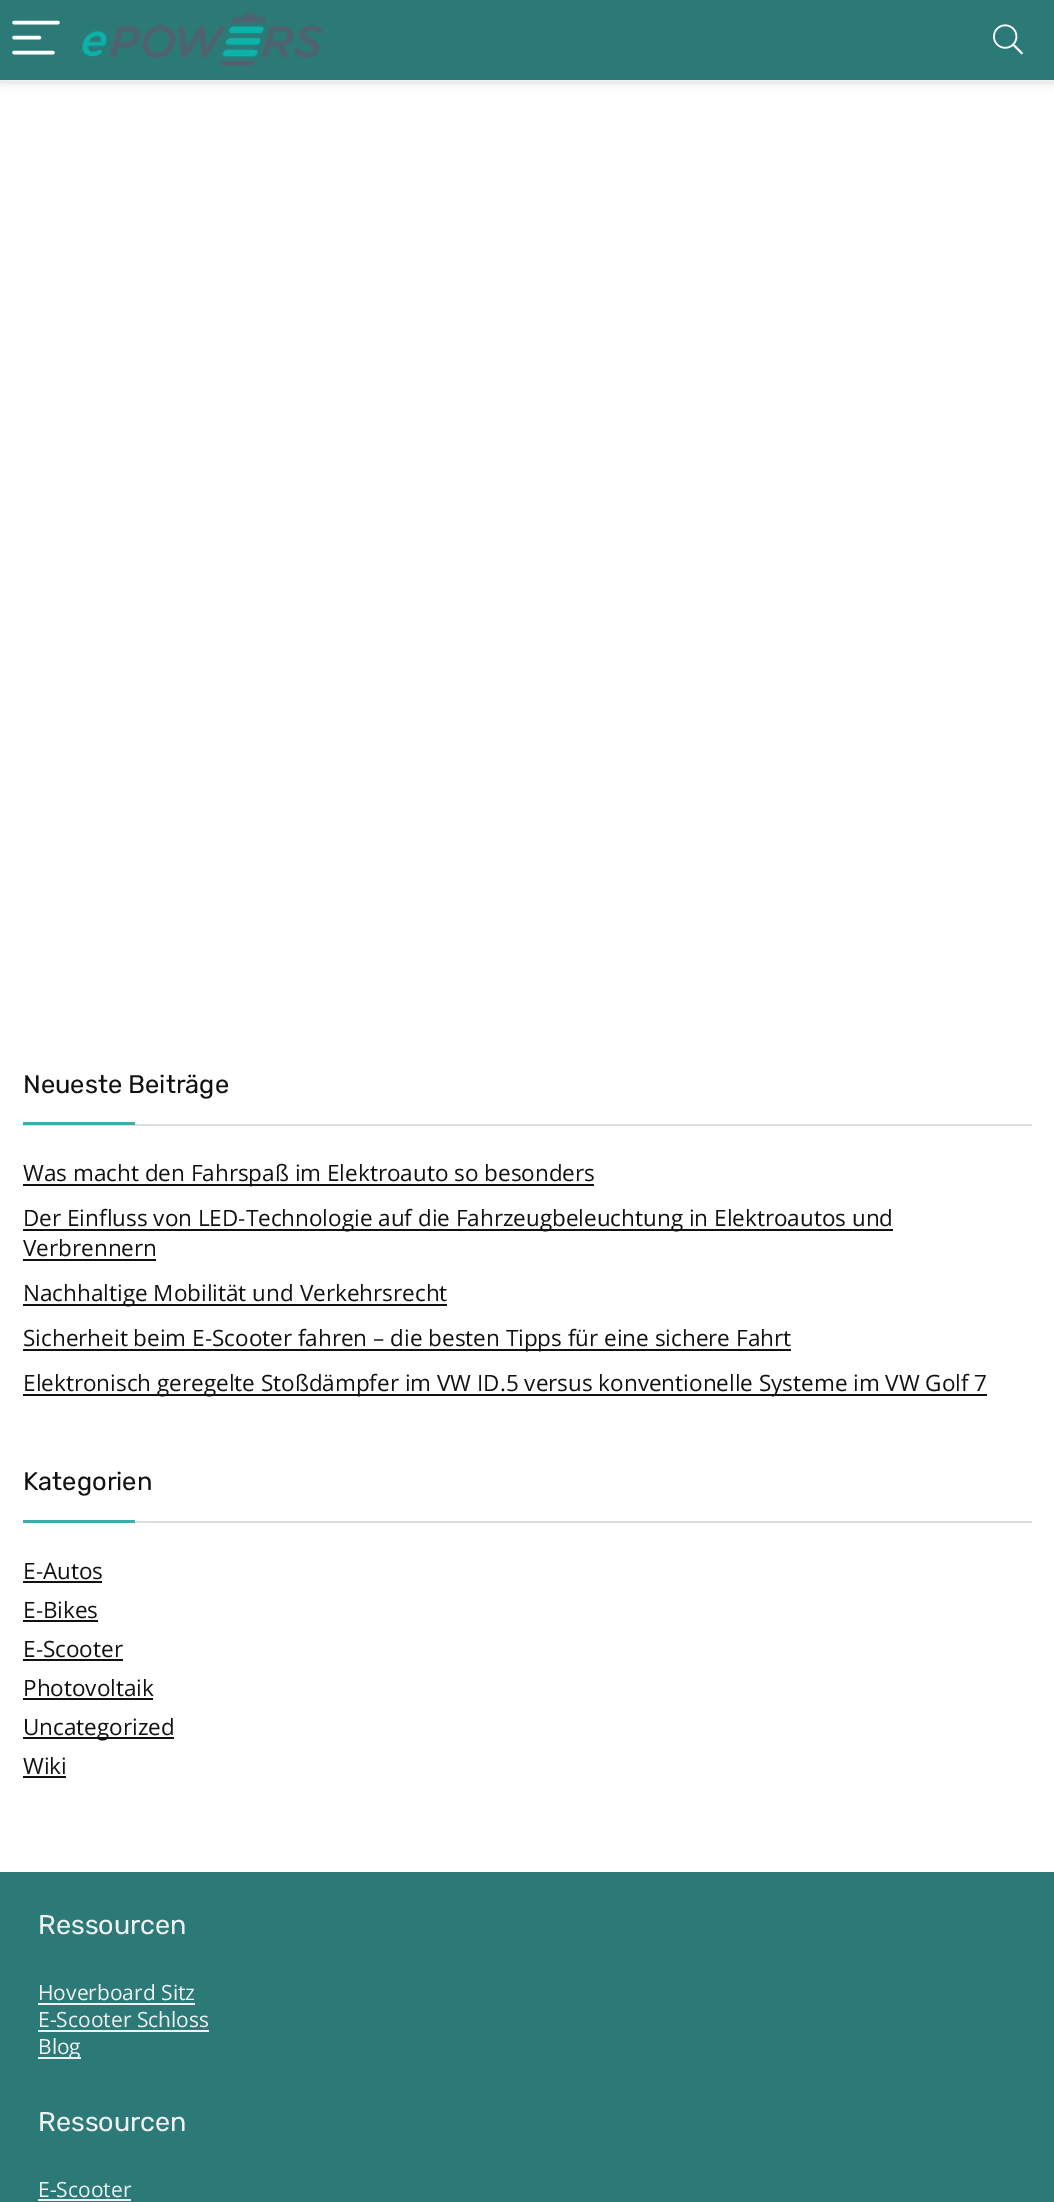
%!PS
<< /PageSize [1054 2202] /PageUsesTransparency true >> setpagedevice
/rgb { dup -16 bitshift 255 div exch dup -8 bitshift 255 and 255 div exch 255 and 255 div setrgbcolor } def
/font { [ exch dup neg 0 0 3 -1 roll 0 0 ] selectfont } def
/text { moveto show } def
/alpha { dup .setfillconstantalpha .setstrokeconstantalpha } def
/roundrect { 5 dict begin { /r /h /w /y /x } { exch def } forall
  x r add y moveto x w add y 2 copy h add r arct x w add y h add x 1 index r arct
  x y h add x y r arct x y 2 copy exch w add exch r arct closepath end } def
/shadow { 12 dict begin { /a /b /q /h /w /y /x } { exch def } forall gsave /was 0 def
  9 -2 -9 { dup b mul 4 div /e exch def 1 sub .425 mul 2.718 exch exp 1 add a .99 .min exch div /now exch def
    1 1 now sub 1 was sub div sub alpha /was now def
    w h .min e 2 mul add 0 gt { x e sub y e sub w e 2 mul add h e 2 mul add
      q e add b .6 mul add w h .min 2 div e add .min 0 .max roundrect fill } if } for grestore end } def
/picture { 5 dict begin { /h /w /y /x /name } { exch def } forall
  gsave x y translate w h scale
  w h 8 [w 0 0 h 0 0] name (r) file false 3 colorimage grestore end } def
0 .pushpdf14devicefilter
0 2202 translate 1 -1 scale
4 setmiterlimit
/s1 { /Rubik-Regular 25.5 font 16#111111 rgb } def
/s2 { /OpenSans-Regular 22.5 font 16#111111 rgb } def
/s3 { /Rubik-Regular 27 font 16#F1F1F1 rgb } def
/s4 { /OpenSans-Regular 21 font 16#F1F1F1 rgb } def
16#FFFFFF rgb
0 0 1054 2202 rectfill
16#F7F7F7 rgb
2 setlinewidth
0 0 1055 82 rectstroke
16#000000 rgb
0 2 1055 81 0 6 0.1 shadow
16#2B7A78 rgb
0 0 1054 80 rectfill
16#EEEEEE rgb
0 80 1054 2 rectfill
16#FEFFFF rgb
3.4 setlinewidth
1 setlinecap
14 22.5 moveto 58 22.5 lineto 14 37.5 moveto 39.5 37.5 lineto 14 52.5 moveto 53 52.5 lineto stroke
(pic1.raw) 82 13 241 53 picture
(pic2.raw) 993 24 30 31 picture
16#DDDDDD rgb
23 1124 1009 2 rectfill
s1
(Neueste Beiträge) 23 1093 text
16#3AAFA9 rgb
23 1122 112 3 rectfill
16#111111 rgb
23 1184 571 2 rectfill
s2
(Was macht den Fahrspaß im Elektroauto so besonders) 23 1181 text
23 1229 870 2 rectfill
(Der Einfluss von LED-Technologie auf die Fahrzeugbeleuchtung in Elektroautos und) 23 1226 text
(Verbrennern) 23 1256 text
23 1259 133 2 rectfill
23 1304 424 2 rectfill
(Nachhaltige Mobilität und Verkehrsrecht) 23 1301 text
23 1349 768 2 rectfill
(Sicherheit beim E-Scooter fahren – die besten Tipps für eine sichere Fahrt) 23 1346 text
23 1394 964 2 rectfill
(Elektronisch geregelte Stoßdämpfer im VW ID.5 versus konventionelle Systeme im VW Golf 7) 23 1391 text
16#DDDDDD rgb
135 1521 897 2 rectfill
s1
(Kategorien) 23 1490 text
16#3AAFA9 rgb
23 1520 112 3 rectfill
s2
(E-Autos) 23 1579 text
23 1581 79 2 rectfill
(E-Bikes) 23 1618 text
23 1620 75 2 rectfill
(E-Scooter) 23 1657 text
23 1659 100 2 rectfill
(Photovoltaik) 23 1696 text
23 1698 130 2 rectfill
23 1737 151 2 rectfill
(Uncategorized) 23 1735 text
(Wiki) 23 1774 text
23 1776 43 2 rectfill
16#2B7A78 rgb
0 1872 1054 330 rectfill
s3
(Ressourcen) 38 1934 text
s4
(Hoverboard Sitz) 38 2000 text
38 2003 157 2 rectfill
(E-Scooter Schloss) 38 2027 text
38 2030 171 2 rectfill
38 2057 43 2 rectfill
(Blog) 38 2054 text
s3
(Ressourcen) 38 2131 text
s4
(E-Scooter) 38 2197 text
38 2199 93 2 rectfill
.poppdf14devicefilter showpage
